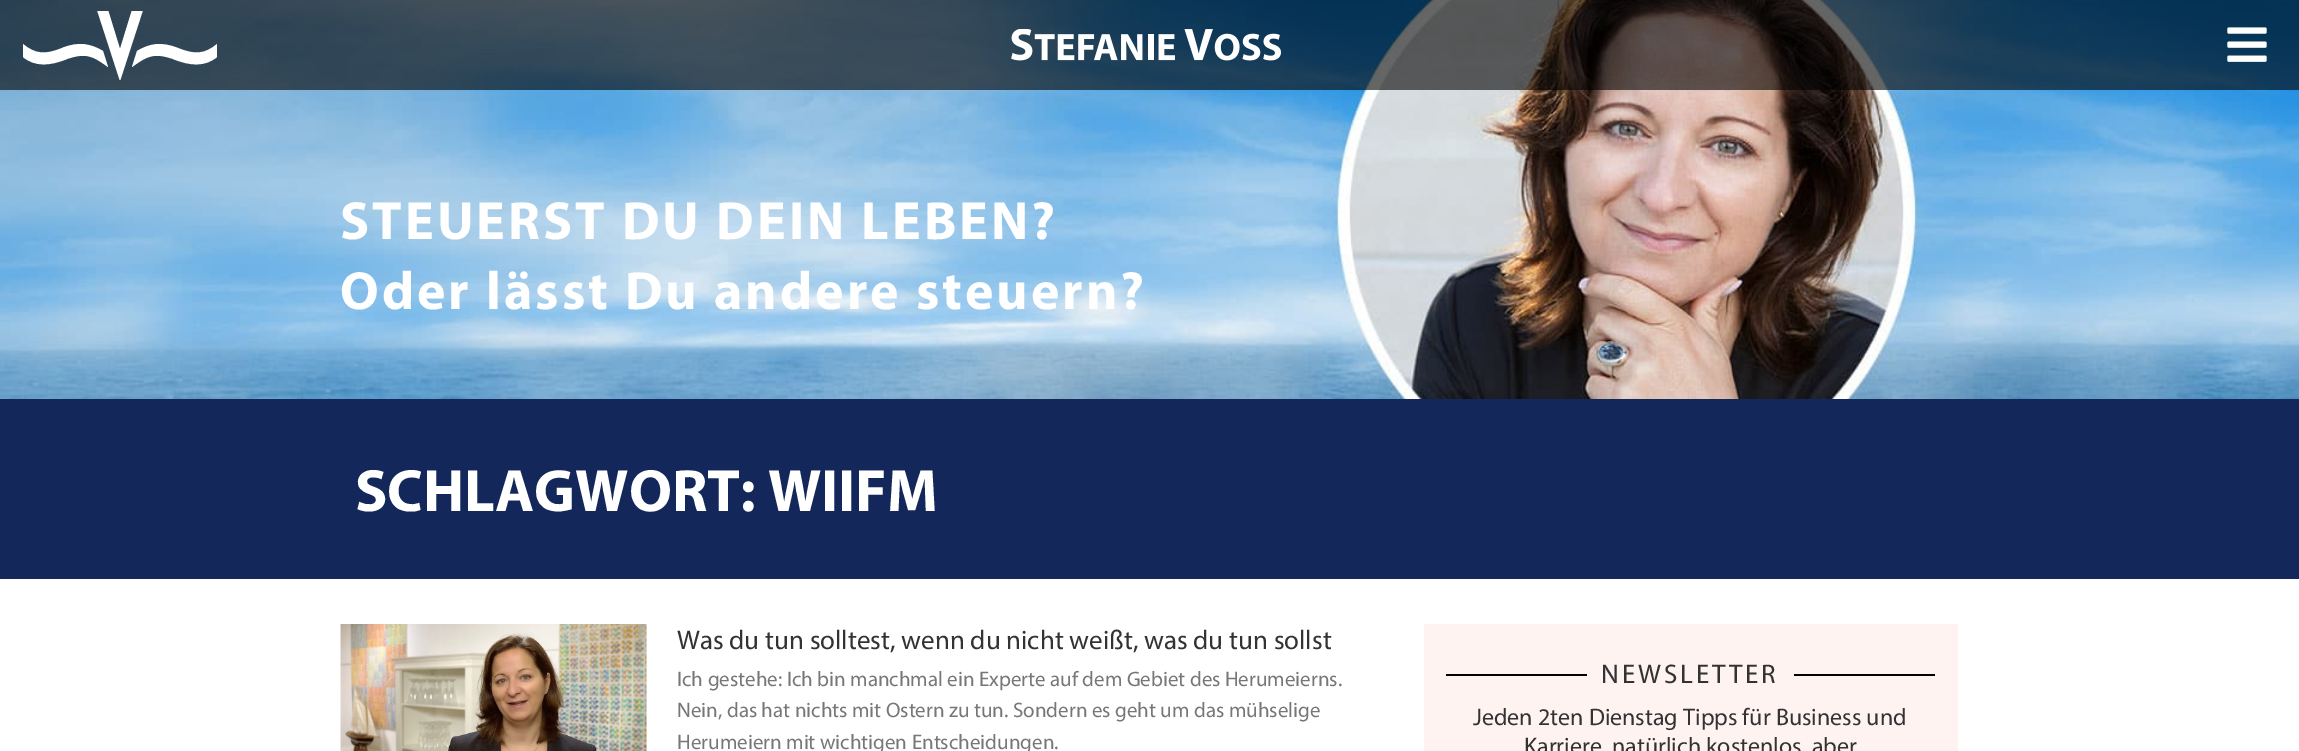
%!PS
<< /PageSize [2299 751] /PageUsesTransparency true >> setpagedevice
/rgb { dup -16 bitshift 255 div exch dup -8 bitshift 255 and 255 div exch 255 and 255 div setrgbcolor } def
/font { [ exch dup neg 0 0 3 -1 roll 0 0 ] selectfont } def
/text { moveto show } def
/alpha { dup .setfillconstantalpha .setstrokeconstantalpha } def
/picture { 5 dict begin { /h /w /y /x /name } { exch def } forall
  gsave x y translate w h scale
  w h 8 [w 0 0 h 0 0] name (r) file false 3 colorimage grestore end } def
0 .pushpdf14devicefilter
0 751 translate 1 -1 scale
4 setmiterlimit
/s1 { /Myriad-Bold 60 font 16#FFFFFF rgb } def
/s2 { /Myriad-Regular 27 font 16#333333 rgb } def
/s3 { /Myriad-Regular 21 font 16#777777 rgb } def
/s4 { /Myriad-Regular 24 font 16#333333 rgb } def
16#FFFFFF rgb
0 0 2299 751 rectfill
(pic3.raw) 0 0 2299 399 picture
0.6 alpha
16#000000 rgb
0 0 2299 90 rectfill
gsave
23 11 195 69 rectclip
1 alpha
16#FFFFFF rgb
132 10 moveto 120 49 lineto 108 10 lineto 97 10 lineto 120 81 lineto 143 10 lineto closepath fill
grestore
1 alpha
16#FFFFFF rgb
103 51 moveto 91 44 79 41 62 48 curveto 45 55 35 54 23 44 curveto 23 57 lineto 35 67 50 66 67 59 curveto 87 52 94 57 108 67 curveto closepath fill
137 51 moveto 149 44 160 41 178 48 curveto 195 55 205 54 217 44 curveto 217 57 lineto 205 67 190 66 173 59 curveto 153 52 146 57 132 67 curveto closepath fill
(pic1.raw) 1011 29 270 32 picture
(pic2.raw) 2227 27 40 35 picture
/Myriad-Bold 54 font
340 239 moveto 3 0 (STEUERST DU DEIN LEBEN?) ashow
340 309 moveto 3 0 (Oder lässt Du andere steuern?) ashow
16#13275A rgb
0 399 2299 180 rectfill
s1
(SCHLAGWORT: WIIFM) 355 511 text
(pic4.raw) 340 624 307 127 picture
s2
(Was du tun solltest, wenn du nicht weißt, was du tun sollst) 677 649 text
s3
(Ich gestehe: Ich bin manchmal ein Experte auf dem Gebiet des Herumeierns.) 677 686 text
(Nein, das hat nichts mit Ostern zu tun. Sondern es geht um das mühselige) 677 717 text
(Herumeiern mit wichtigen Entscheidungen.) 677 749 text
16#FFF3F2 rgb
1424 624 534 127 rectfill
16#000000 rgb
1446 674 141 2 rectfill
/Myriad-Regular 27 font
16#333333 rgb
1601 683 moveto 3 0 (NEWSLETTER) ashow
16#000000 rgb
1794 674 141 2 rectfill
s4
(Jeden 2ten Dienstag Tipps für Business und) 1473 725 text
(Karriere, natürlich kostenlos, aber) 1524 754 text
.poppdf14devicefilter showpage
